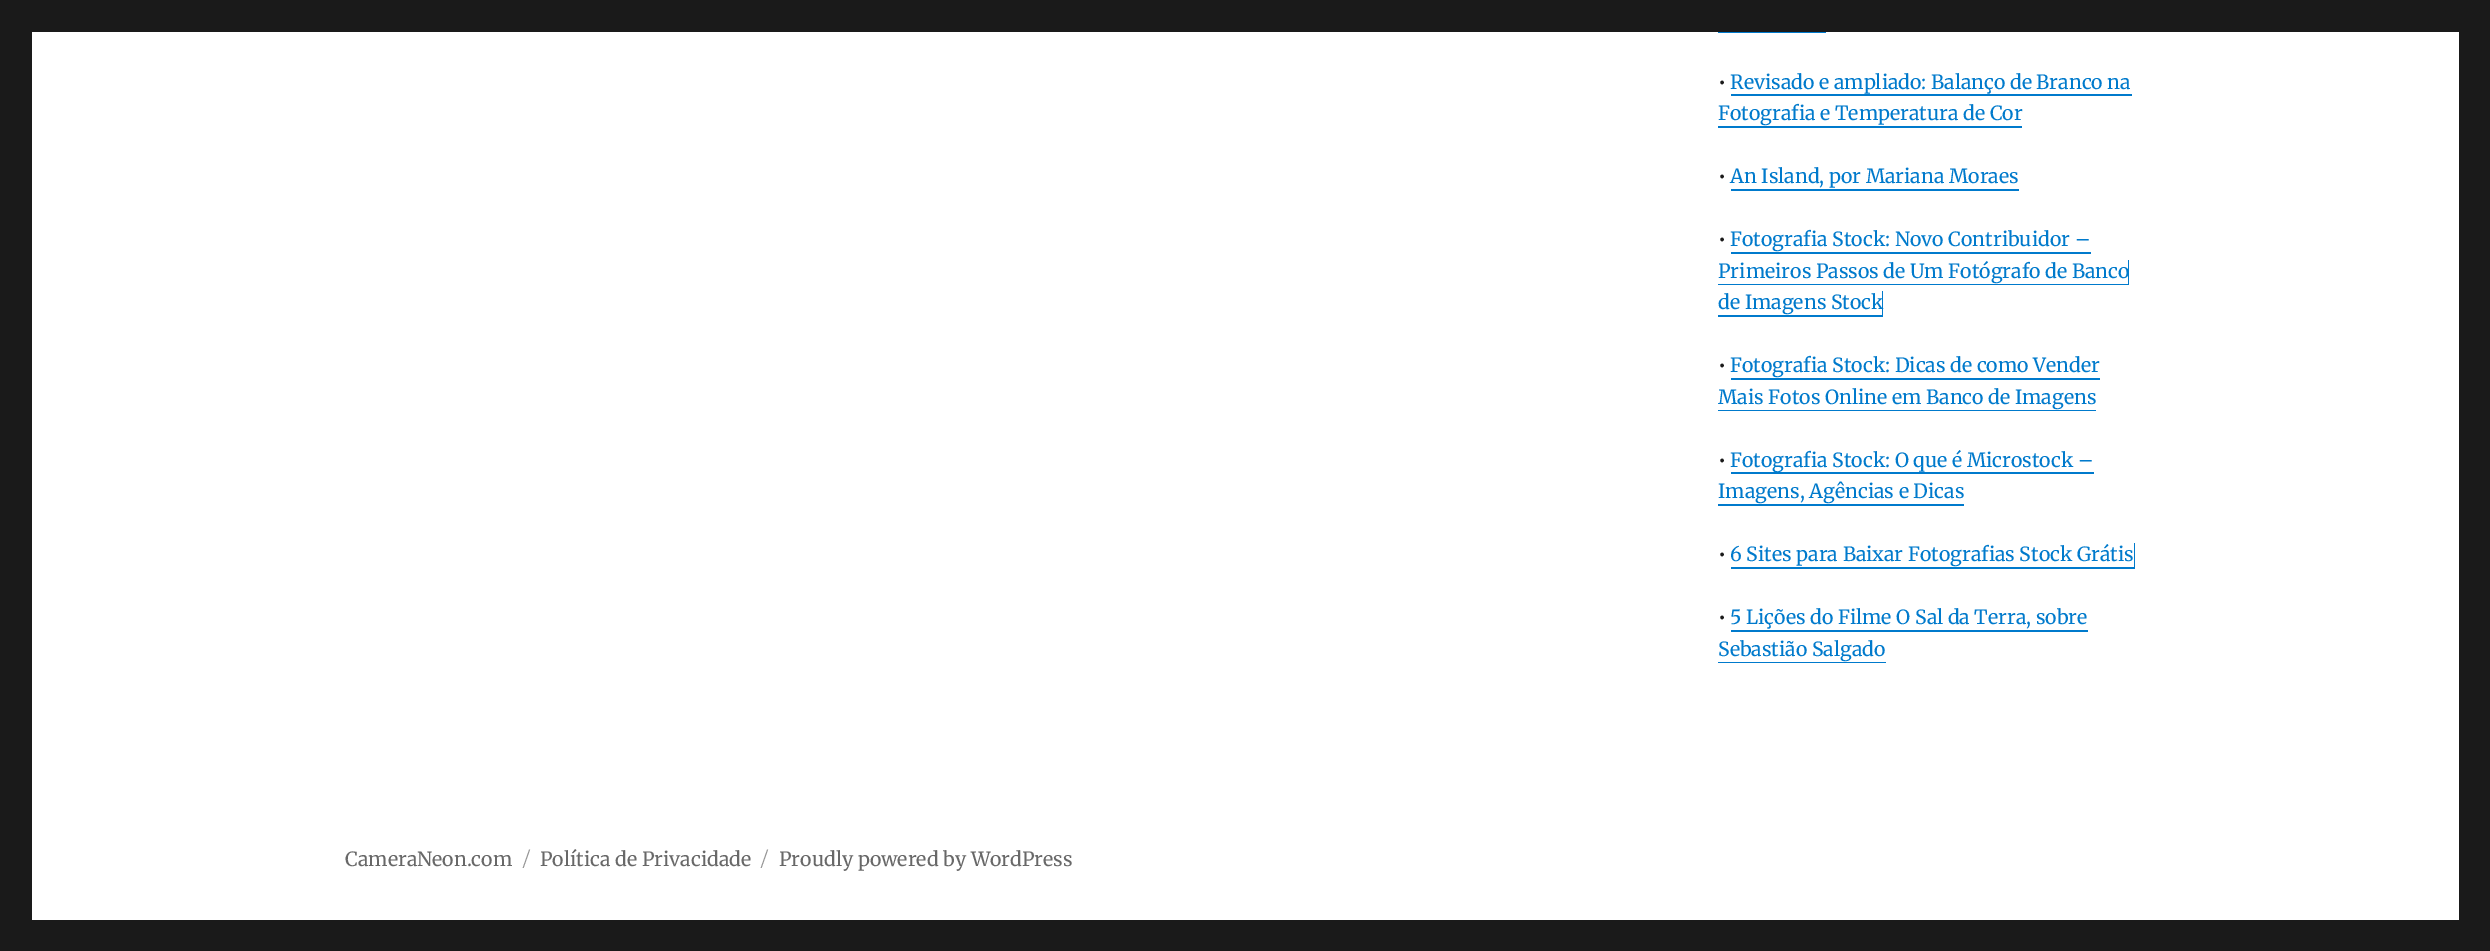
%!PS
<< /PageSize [2490 951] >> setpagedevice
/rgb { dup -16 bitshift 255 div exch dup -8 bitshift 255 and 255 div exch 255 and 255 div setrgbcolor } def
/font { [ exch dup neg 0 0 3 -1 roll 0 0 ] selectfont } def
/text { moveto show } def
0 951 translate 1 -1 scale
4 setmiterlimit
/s1 { /Merriweather-Regular 19.5 font 16#1A1A1A rgb } def
/s2 { /Merriweather-Regular 19.5 font 16#007ACC rgb } def
/s3 { /Merriweather-Regular 19.5 font 16#686868 rgb } def
/s4 { /Montserrat-Regular 19.5 font 16#959595 rgb } def
16#1A1A1A rgb
0 0 2490 951 rectfill
16#FFFFFF rgb
32 32 2427 888 rectfill
16#007ACC rgb
1718 32 moveto 1718 33 lineto 1826 33 lineto 1826 8 lineto 1826 32 lineto closepath fill
s1
(•) 1718 89 text
s2
(Revisado e ampliado: Balanço de Branco na) 1730 89 text
1731 94 moveto 1731 96 lineto 2132 96 lineto 2132 71 lineto 2132 94 lineto closepath fill
(Fotografia e Temperatura de Cor) 1718 120 text
1718 126 304 2 rectfill
s1
(•) 1718 183 text
s2
(An Island, por Mariana Moraes) 1730 183 text
1731 189 288 2 rectfill
s1
(•) 1718 246 text
s2
(Fotografia Stock: Novo Contribuidor –) 1730 246 text
1731 252 360 2 rectfill
1718 284 moveto 1718 285 lineto 2129 285 lineto 2129 260 lineto 2128 260 lineto 2128 284 lineto closepath fill
(Primeiros Passos de Um Fotógrafo de Banco) 1718 278 text
1718 315 moveto 1718 317 lineto 1883 317 lineto 1883 291 lineto 1882 291 lineto 1882 315 lineto closepath fill
(de Imagens Stock) 1718 309 text
s1
(•) 1718 372 text
s2
(Fotografia Stock: Dicas de como Vender) 1730 372 text
1731 378 369 2 rectfill
(Mais Fotos Online em Banco de Imagens) 1718 404 text
1718 410 moveto 1718 411 lineto 2096 411 lineto 2096 386 lineto 2096 410 lineto closepath fill
s1
(•) 1718 467 text
16#007ACC rgb
1731 472 363 2 rectfill
(Fotografia Stock: O que é Microstock –) 1730 467 text
(Imagens, Agências e Dicas) 1718 498 text
1718 504 moveto 1718 506 lineto 1964 506 lineto 1964 480 lineto 1964 504 lineto closepath fill
s1
(•) 1718 561 text
16#007ACC rgb
1731 567 moveto 1731 569 lineto 2135 569 lineto 2135 543 lineto 2134 543 lineto 2134 567 lineto closepath fill
(6 Sites para Baixar Fotografias Stock Grátis) 1730 561 text
s1
(•) 1718 624 text
s2
(5 Lições do Filme O Sal da Terra, sobre) 1730 624 text
1731 630 357 2 rectfill
(Sebastião Salgado) 1718 656 text
1718 662 moveto 1718 663 lineto 1886 663 lineto 1886 638 lineto 1886 662 lineto closepath fill
s3
(CameraNeon.com) 345 866 text
s4
(/) 523 866 text
s3
(Política de Privacidade) 540 866 text
s4
(/) 761 866 text
s3
(Proudly powered by WordPress) 779 866 text
showpage
